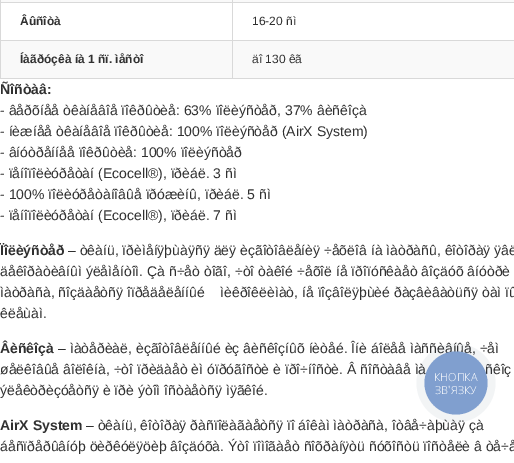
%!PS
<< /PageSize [514 463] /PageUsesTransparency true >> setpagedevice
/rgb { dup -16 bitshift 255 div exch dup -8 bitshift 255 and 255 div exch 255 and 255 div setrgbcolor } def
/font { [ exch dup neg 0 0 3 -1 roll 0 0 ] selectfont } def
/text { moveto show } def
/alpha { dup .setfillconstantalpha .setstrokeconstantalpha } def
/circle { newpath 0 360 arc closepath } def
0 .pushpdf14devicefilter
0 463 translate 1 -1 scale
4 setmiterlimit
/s1 { /LiberationSans-Bold 12 font 16#303030 rgb } def
/s2 { /LiberationSans-Regular 12 font 16#303030 rgb } def
/s3 { /LiberationSans-Bold 14 font 16#303030 rgb } def
/s4 { /LiberationSans-Regular 14 font 16#303030 rgb } def
/s5 { /OpenSans-Light 11 font 16#FFFFFF rgb } def
/s6 { /Ubuntu-Light 11 font 16#FFFFFF rgb } def
16#FFFFFF rgb
0 0 514 463 rectfill
16#F9F9F9 rgb
1 0 513 2 rectfill
16#D9D9D9 rgb
232 2 282 1 rectfill
232 40 282 1 rectfill
232 78 282 1 rectfill
232 40 1 39 rectfill
0 40 233 1 rectfill
232 2 1 39 rectfill
0 2 233 1 rectfill
232 0 1 3 rectfill
0 78 233 1 rectfill
0 40 1 39 rectfill
0 0 1 41 rectfill
s1
(Âûñîòà) 20 25 text
s2
(16-20 ñì) 252 25 text
16#F9F9F9 rgb
1 41 231 37 rectfill
s1
(Íàãðóçêà íà 1 ñï. ìåñòî) 20 63 text
16#F9F9F9 rgb
233 41 281 37 rectfill
s2
(äî 130 êã) 252 63 text
s3
(Ñîñòàâ:) 0 94 text
s4
(- âåðõíåå òêàíåâîå ïîêðûòèå: 63% ïîëèýñòåð, 37% âèñêîçà) 0 115 text
(- íèæíåå òêàíåâîå ïîêðûòèå: 100% ïîëèýñòåð \(AirX System\)) 0 136 text
(- âíóòðåííåå ïîêðûòèå: 100% ïîëèýñòåð) 0 157 text
(- ïåíîïîëèóðåòàí \(Ecocell®\), ïðèáë. 3 ñì) 0 178 text
(- 100% ïîëèóðåòàíîâûå ïðóæèíû, ïðèáë. 5 ñì) 0 199 text
(- ïåíîïîëèóðåòàí \(Ecocell®\), ïðèáë. 7 ñì) 0 220 text
s3
(Ïîëèýñòåð) 0 255 text
s4
(– òêàíü, ïðèìåíÿþùàÿñÿ äëÿ èçãîòîâëåíèÿ ÷åõëîâ íà ìàòðàñû, êîòîðàÿ ÿâë) 68 255 text
(äåêîðàòèâíûì ýëåìåíòîì. Çà ñ÷åò òîãî, ÷òî òàêîé ÷åõîë íå ïðîïóñêàåò âîçäóõ âíóòðè) 0 276 text
(ìàòðàñà, ñîçäàåòñÿ îïðåäåëåííûé    ìèêðîêëèìàò, íå ïîçâîëÿþùèé ðàçâèâàòüñÿ òàì ïû) 0 297 text
(êëåùàì.) 0 318 text
s3
(Âèñêîçà) 0 353 text
s4
(– ìàòåðèàë, èçãîòîâëåííûé èç âèñêîçíûõ íèòåé. Îíè áîëåå ìàññèâíûå, ÷åì) 58 353 text
(øåëêîâûå âîëîêíà, ÷òî ïðèäàåò èì óïðóãîñòè è ïðî÷íîñòè. Â ñîñòàâå ìà) 0 374 text
(ñêîç) 485 374 text
(ýëåêòðèçóåòñÿ è ïðè ýòîì îñòàåòñÿ ìÿãêîé.) 0 395 text
s3
(AirX System) 0 430 text
s4
(– òêàíü, êîòîðàÿ ðàñïîëàãàåòñÿ ïî áîêàì ìàòðàñà, îòâå÷àþùàÿ çà) 86 430 text
(áåñïðåðûâíóþ öèðêóëÿöèþ âîçäóõà. Ýòî ïîìîãàåò ñîõðàíÿòü ñóõîñòü ïîñòåëè â òå÷å) 0 451 text
0.06 alpha
16#2A405D rgb
456 383 39.5 circle fill
1 alpha
16#809FCF rgb
456 383 31.5 circle fill
s5
(КНОПКА) 434 381 text
(ЗВ) 435 394 text
s6
(') 448 394 text
s5
(ЯЗКУ) 451 394 text
.poppdf14devicefilter showpage
